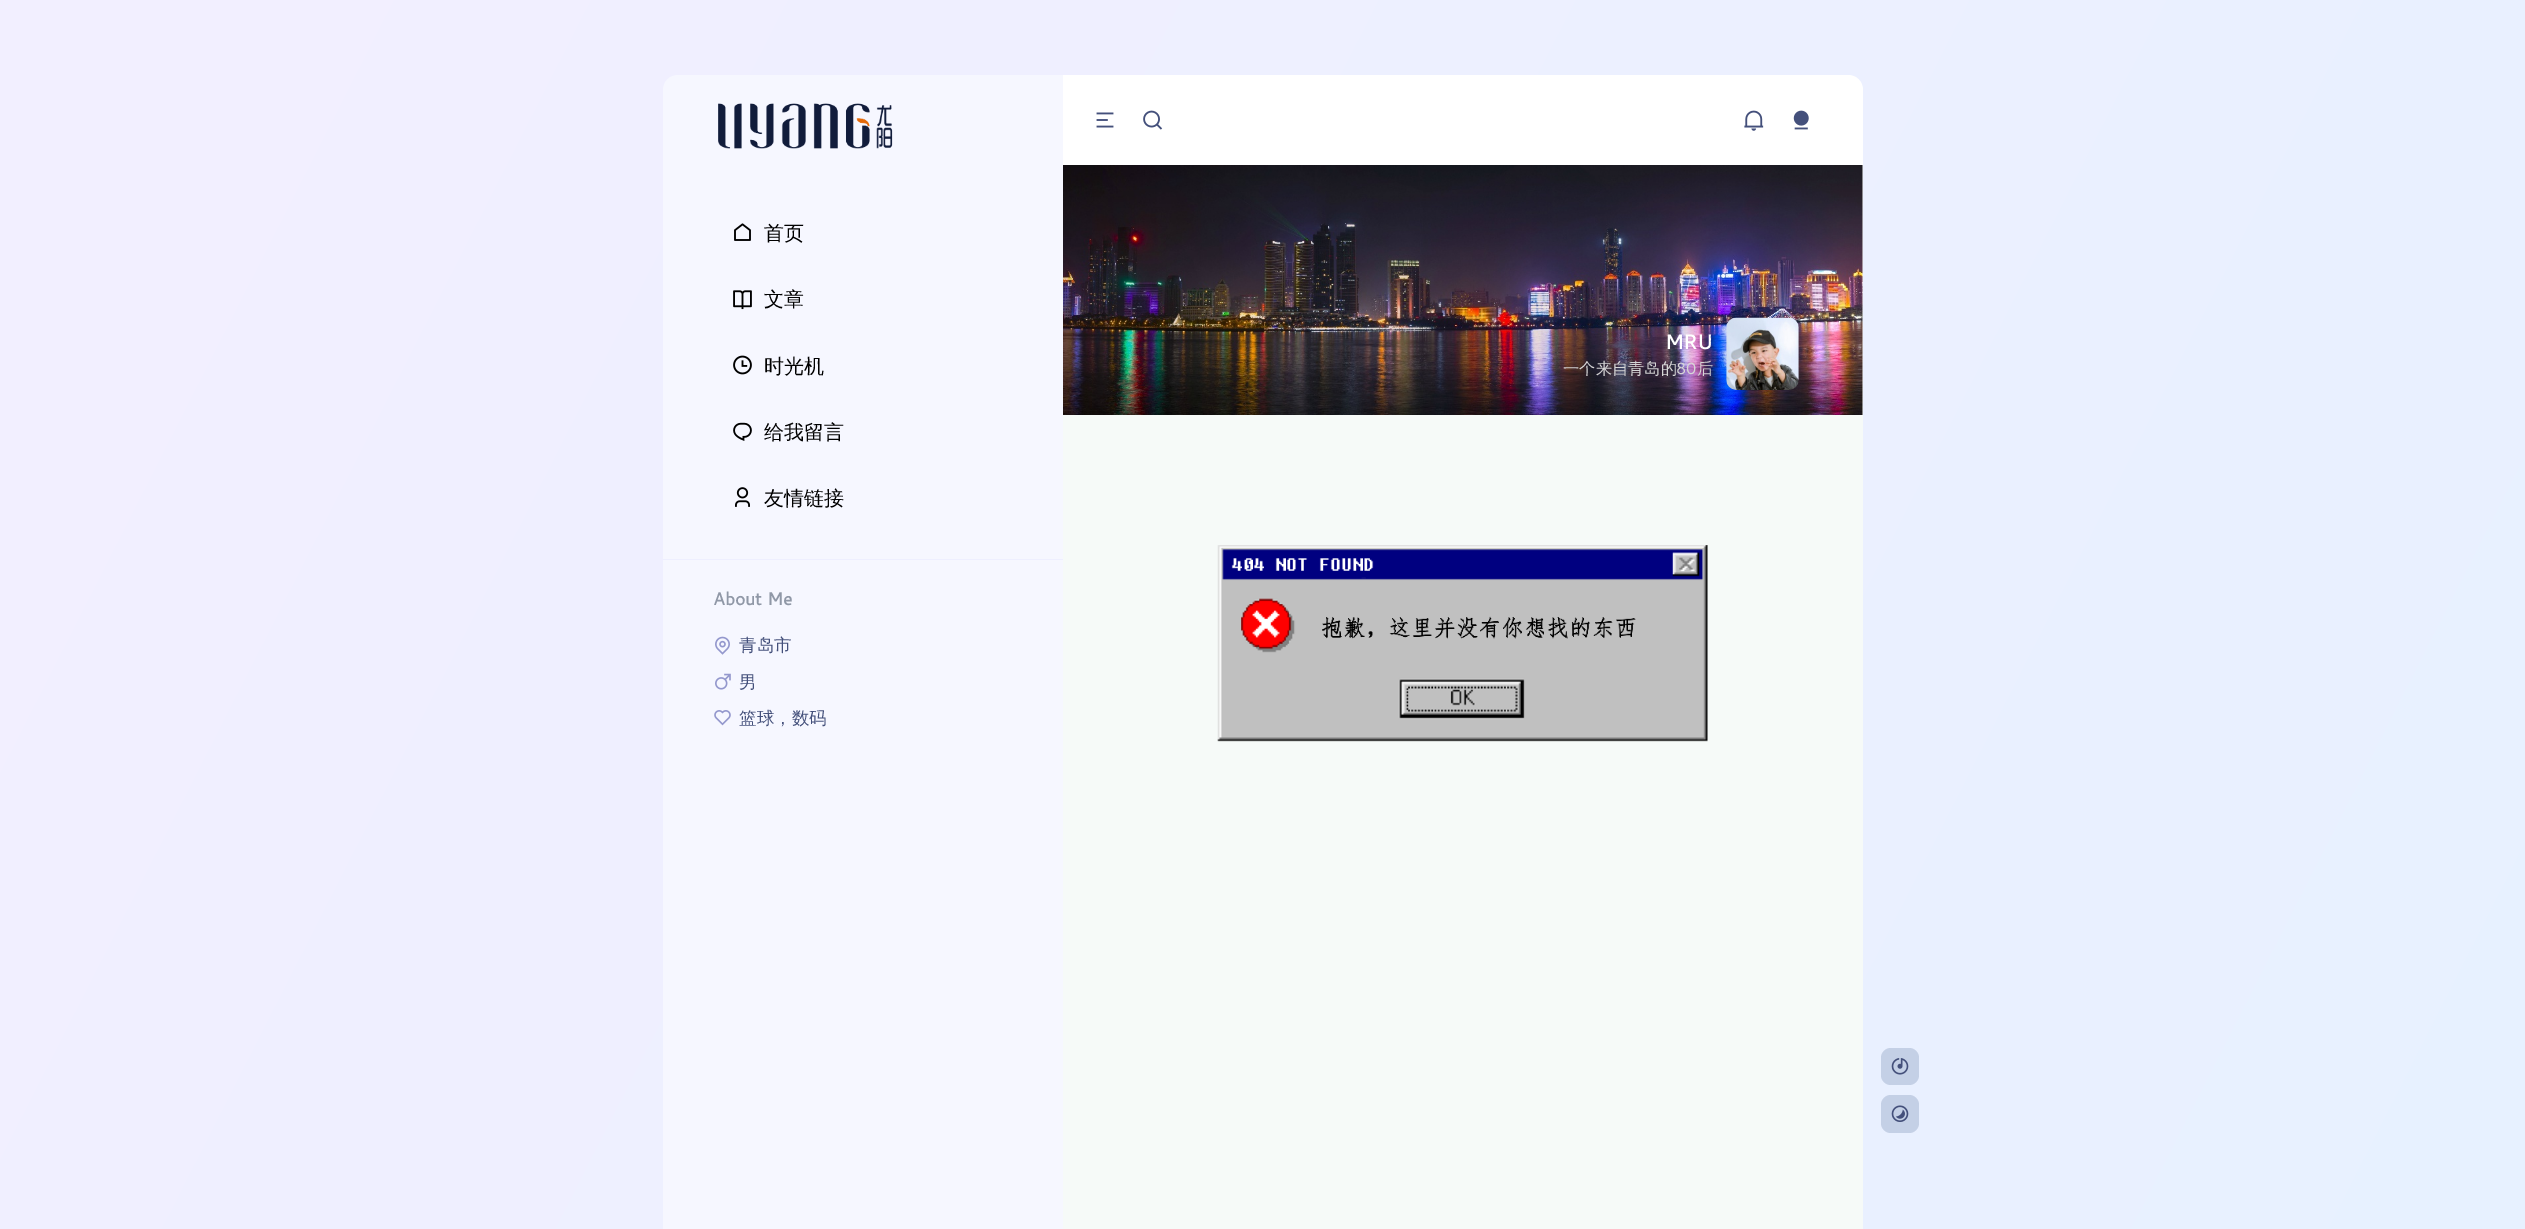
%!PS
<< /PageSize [2525 1229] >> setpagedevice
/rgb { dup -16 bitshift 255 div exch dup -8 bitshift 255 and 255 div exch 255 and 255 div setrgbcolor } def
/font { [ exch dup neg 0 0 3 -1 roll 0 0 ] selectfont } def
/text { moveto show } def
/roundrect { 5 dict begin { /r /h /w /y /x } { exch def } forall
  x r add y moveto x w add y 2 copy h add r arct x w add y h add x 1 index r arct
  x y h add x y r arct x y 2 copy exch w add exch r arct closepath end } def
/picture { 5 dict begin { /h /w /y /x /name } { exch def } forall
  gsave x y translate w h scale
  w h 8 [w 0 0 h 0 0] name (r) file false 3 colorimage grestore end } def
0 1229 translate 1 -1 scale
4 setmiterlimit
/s1 { /WenQuanYiZenHei-Medium 20 font 16#000000 rgb } def
/s2 { /Cantarell-Bold 17.5 font 16#9098A7 rgb } def
/s3 { /WenQuanYiZenHei-Medium 17.5 font 16#44507B rgb } def
/s4 { /Cantarell-Bold 20 font 16#FFFFFF rgb } def
/s5 { /WenQuanYiZenHei-Medium 16.25 font 16#D6D6D6 rgb } def
/s6 { /Cantarell-Regular 16.25 font 16#D6D6D6 rgb } def
16#FFFFFF rgb
0 0 2525 1229 rectfill
gsave 0 0 moveto 2525 0 lineto 2525 1229 lineto 0 1229 lineto closepath clip newpath
<< /ShadingType 2 /ColorSpace /DeviceRGB /Coords [-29 56 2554 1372] /Extend [true true] /Function << /FunctionType 2 /Domain [0 1] /C0 [0.953 0.937 1] /C1 [0.906 0.945 1] /N 1 >> >> shfill grestore
16#F6F7FF rgb
678 75 moveto 1063 75 lineto 1063 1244 lineto 663 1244 lineto 663 90 lineto 663 81.5 669.5 75 678 75 curveto closepath fill
(pic1.raw) 718 103 175 46 picture
16#EEEFFF rgb
663 559 400 1 rectfill
(pic2.raw) 734 223 17 18 picture
s1
(首页) 764 240 text
(pic3.raw) 733 290 19 20 picture
(文章) 764 306 text
(pic4.raw) 733 355 19 20 picture
(时光机) 764 373 text
(pic5.raw) 733 422 19 19 picture
(给我留言) 764 439 text
(pic6.raw) 735 487 15 20 picture
(友情链接) 764 505 text
s2
(About Me) 713 605 text
(pic7.raw) 715 636 15 19 picture
s3
(青岛市) 739 651 text
(pic8.raw) 715 673 16 17 picture
(男) 739 688 text
(pic9.raw) 714 710 17 16 picture
(篮球，数码) 739 724 text
16#FFFFFF rgb
1063 75 moveto 1848 75 lineto 1856.5 75 1863 81.5 1863 90 curveto 1863 165 lineto 1063 165 lineto closepath fill
(pic10.raw) 1096 112 18 16 picture
(pic11.raw) 1143 110 20 20 picture
(pic12.raw) 1744 110 20 21 picture
(pic13.raw) 1793 110 16 20 picture
16#F6FAF8 rgb
1862 165 1 250 rectfill
(pic14.raw) 1063 165 800 250 picture
s4
(MRU) 1665 349 text
s5
(一个来自青岛的) 1563 374 text
s6
(80) 1676 374 text
s5
(后) 1697 374 text
(pic15.raw) 1726 317 73 73 picture
16#F6FAF8 rgb
1063 415 800 814 rectfill
(pic16.raw) 1217 545 491 197 picture
16#C4D0E6 rgb
1881 1048 38 37 10 roundrect fill
(pic17.raw) 1891 1058 18 17 picture
1881 1095 38 38 10 roundrect fill
(pic18.raw) 1891 1105 18 17 picture
showpage
